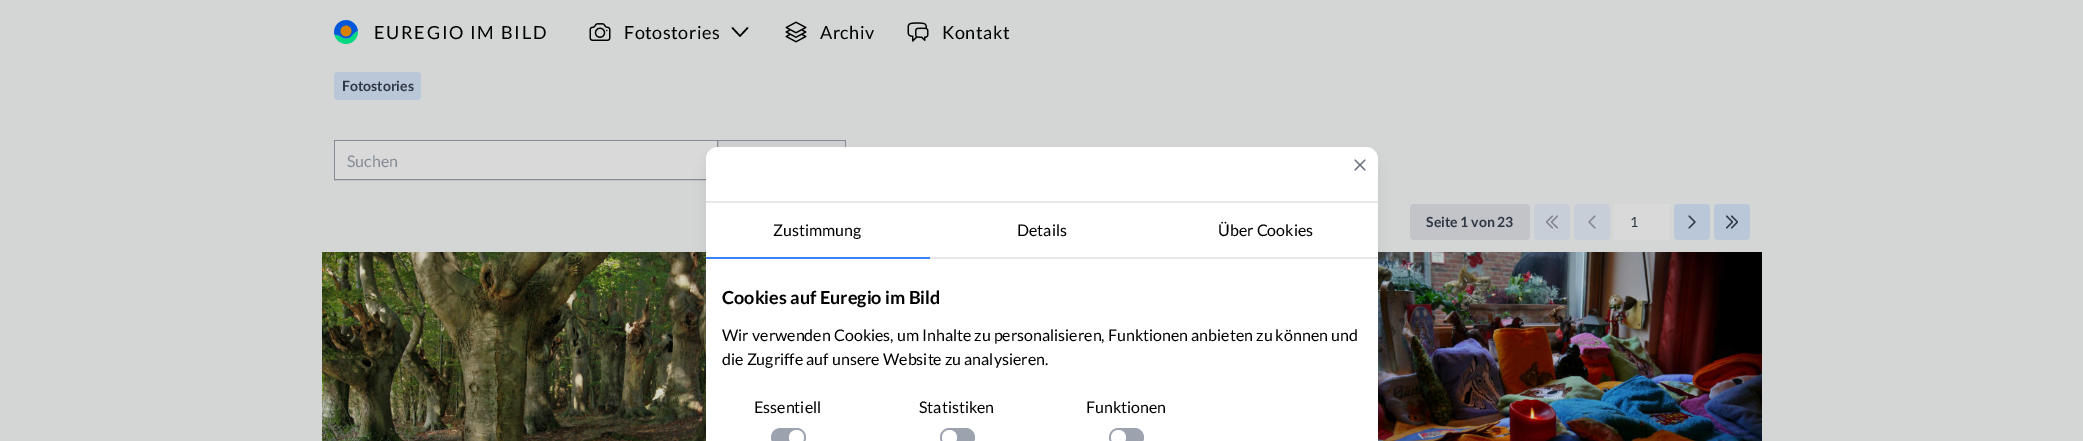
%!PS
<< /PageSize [2083 441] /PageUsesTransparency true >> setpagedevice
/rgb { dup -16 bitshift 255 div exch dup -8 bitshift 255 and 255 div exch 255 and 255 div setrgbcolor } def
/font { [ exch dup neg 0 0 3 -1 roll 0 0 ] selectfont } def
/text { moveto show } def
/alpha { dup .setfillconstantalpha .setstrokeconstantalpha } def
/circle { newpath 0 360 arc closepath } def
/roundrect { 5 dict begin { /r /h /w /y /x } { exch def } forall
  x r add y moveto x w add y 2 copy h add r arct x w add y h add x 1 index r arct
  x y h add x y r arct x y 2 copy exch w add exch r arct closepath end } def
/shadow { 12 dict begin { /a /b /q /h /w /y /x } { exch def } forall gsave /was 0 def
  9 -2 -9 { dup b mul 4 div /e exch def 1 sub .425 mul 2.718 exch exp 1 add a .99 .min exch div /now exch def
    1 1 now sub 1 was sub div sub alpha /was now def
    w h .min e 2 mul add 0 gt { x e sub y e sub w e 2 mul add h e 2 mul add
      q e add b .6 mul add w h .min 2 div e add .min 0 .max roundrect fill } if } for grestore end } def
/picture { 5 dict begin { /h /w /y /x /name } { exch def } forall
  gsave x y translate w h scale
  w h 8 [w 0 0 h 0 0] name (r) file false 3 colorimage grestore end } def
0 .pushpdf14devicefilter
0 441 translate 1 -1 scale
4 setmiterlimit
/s1 { /Lato-Bold 14 font 16#2F3745 rgb } def
/s2 { /Lato-Regular 16 font 16#858B95 rgb } def
/s3 { /Lato-Regular 14 font 16#2F3745 rgb } def
/s4 { /Lato-Regular 16 font 16#000000 rgb } def
/s5 { /Lato-Bold 18 font 16#000000 rgb } def
16#D4D5D5 rgb
0 0 2083 441 rectfill
(pic1.raw) 334 20 24 24 picture
/Lato-Regular 18 font
16#000000 rgb
374 39 moveto 1.75 0 (EUREGIO IM BILD) ashow
(pic2.raw) 589 23 22 18 picture
624 39 moveto 0.5 0 (Fotostories) ashow
1.5 setlinewidth
1 setlinecap
1 setlinejoin
747.5 28 moveto 740 36 lineto 732.5 28 lineto stroke
(pic3.raw) 785 21 22 22 picture
820 39 moveto 0.5 0 (Archiv) ashow
(pic4.raw) 907 22 22 20 picture
942 39 moveto 0.5 0 (Kontakt) ashow
16#BAC7D8 rgb
334 72 87 28 4 roundrect fill
s1
(Fotostories) 342 91 text
16#CFCFD1 rgb
718 141 127 6 rectfill
16#858B95 rgb
718 140 128 1 rectfill
845 140 1 7 rectfill
1 setlinewidth
0 setlinecap
0 setlinejoin
334.5 140.5 383 39 rectstroke
16#D9D9D9 rgb
335 141 382 38 rectfill
s2
(Suchen) 347 167 text
16#C7CED7 rgb
1534 204 36 36 4 roundrect fill
16#81868D rgb
1.2 setlinewidth
1 setlinecap
1 setlinejoin
1557.5 216 moveto 1551.5 222 lineto 1557.5 228 lineto 1552.5 216 moveto 1546.5 222 lineto 1552.5 228 lineto stroke
16#C7CED7 rgb
1574 204 36 36 4 roundrect fill
16#81868D rgb
1595 228 moveto 1589 222 lineto 1595 216 lineto stroke
16#BAC7D8 rgb
1674 204 36 36 4 roundrect fill
1714 204 36 36 4 roundrect fill
16#2F3745 rgb
1689 216 moveto 1695 222 lineto 1689 228 lineto 1726.5 216 moveto 1732.5 222 lineto 1726.5 228 lineto 1731.5 216 moveto 1737.5 222 lineto 1731.5 228 lineto stroke
16#C3C4C8 rgb
1410 204 120 36 4 roundrect fill
s1
(Seite 1 von 23) 1426 227 text
16#D9D9D9 rgb
1614 204 56 36 rectfill
s3
(1) 1630 227 text
(pic5.raw) 322 252 384 189 picture
(pic6.raw) 1378 252 384 189 picture
16#000000 rgb
709 160 666 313 9 7.5 0.1 shadow
16#FFFFFF rgb
718 147 moveto 1366 147 lineto 1372.5 147 1378 152.5 1378 159 curveto 1378 441 lineto 706 441 lineto 706 159 lineto 706 152.5 711.5 147 718 147 curveto closepath fill
16#E5E7EB rgb
706 201 672 2 rectfill
16#6B7280 rgb
1355 170 moveto 1365 160 lineto 1355 160 moveto 1365 170 lineto stroke
16#3B82F6 rgb
706 257 224 2 rectfill
s4
(Zustimmung) 773 236 text
16#E5E7EB rgb
930 257 448 2 rectfill
s4
(Details) 1017 236 text
(Über Cookies) 1218 236 text
s5
(Cookies auf Euregio im Bild) 722 304 text
s4
(Wir verwenden Cookies, um Inhalte zu personalisieren, Funktionen anbieten zu können und) 722 341 text
(die Zugriffe auf unsere Website zu analysieren.) 722 365 text
(Essentiell) 754 413 text
16#9CA3AF rgb
771 428 35 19 9.5 roundrect fill
16#FFFFFF rgb
796.5 437.5 7.5 circle fill
s4
(Statistiken) 919 413 text
16#9CA3AF rgb
940 428 35 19 9.5 roundrect fill
16#FFFFFF rgb
949.5 437.5 7.5 circle fill
s4
(Funktionen) 1086 413 text
16#9CA3AF rgb
1109 428 35 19 9.5 roundrect fill
16#FFFFFF rgb
1118.5 437.5 7.5 circle fill
.poppdf14devicefilter showpage
